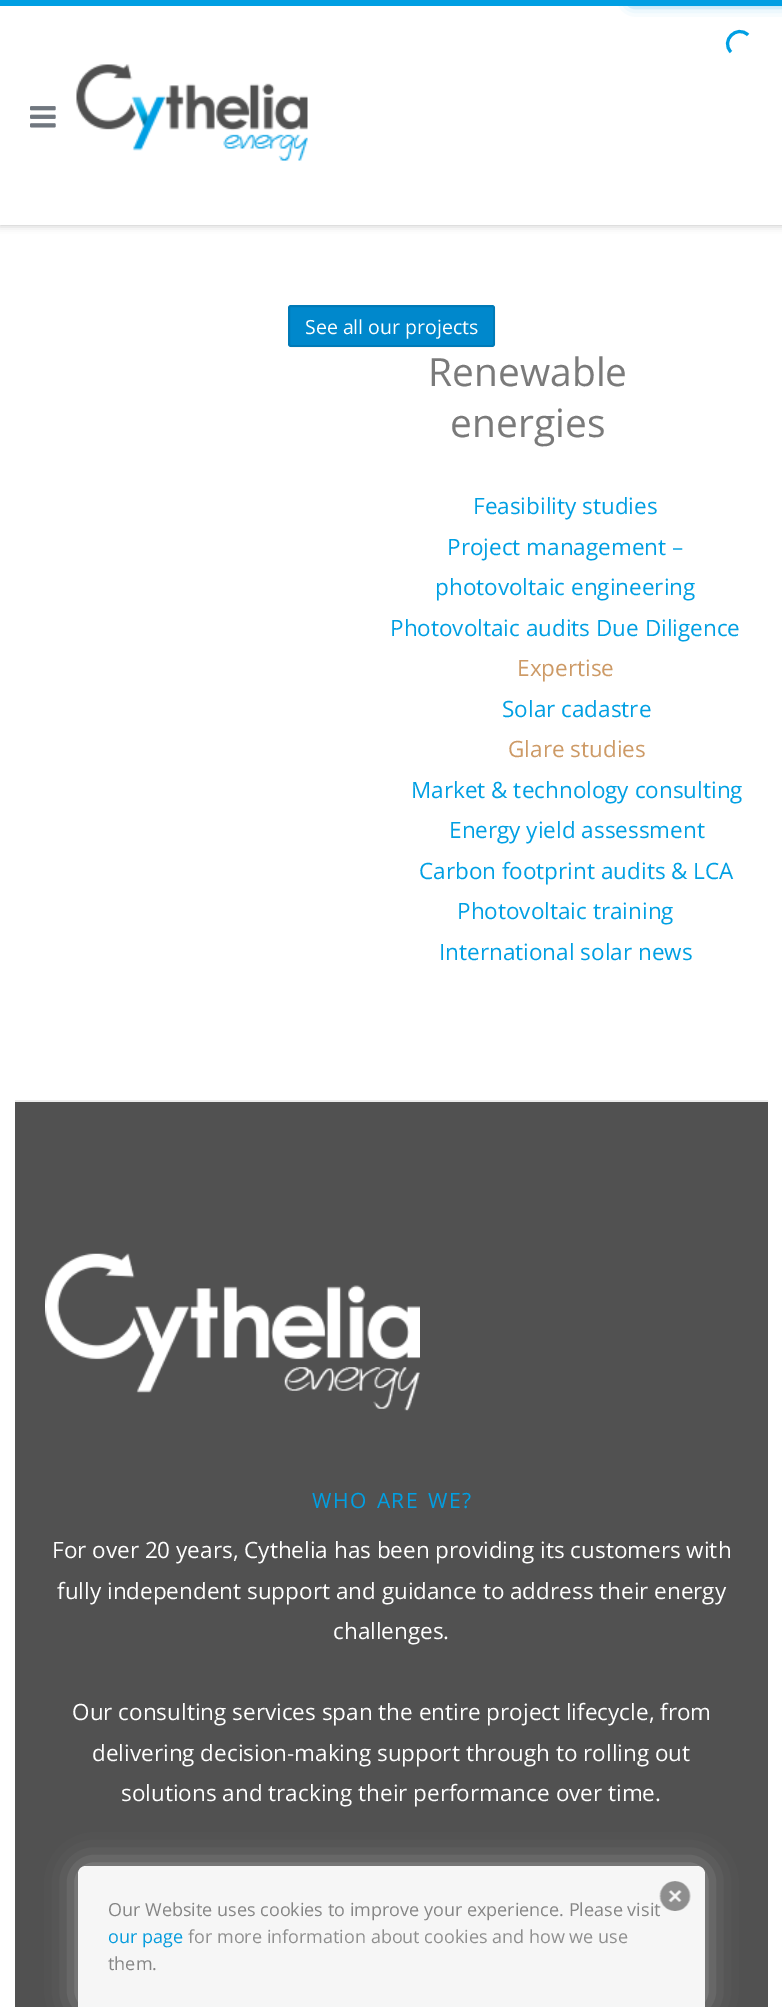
%!PS
<< /PageSize [782 2007] /PageUsesTransparency true >> setpagedevice
/rgb { dup -16 bitshift 255 div exch dup -8 bitshift 255 and 255 div exch 255 and 255 div setrgbcolor } def
/font { [ exch dup neg 0 0 3 -1 roll 0 0 ] selectfont } def
/text { moveto show } def
/alpha { dup .setfillconstantalpha .setstrokeconstantalpha } def
/roundrect { 5 dict begin { /r /h /w /y /x } { exch def } forall
  x r add y moveto x w add y 2 copy h add r arct x w add y h add x 1 index r arct
  x y h add x y r arct x y 2 copy exch w add exch r arct closepath end } def
/shadow { 12 dict begin { /a /b /q /h /w /y /x } { exch def } forall gsave /was 0 def
  9 -2 -9 { dup b mul 4 div /e exch def 1 sub .425 mul 2.718 exch exp 1 add a .99 .min exch div /now exch def
    1 1 now sub 1 was sub div sub alpha /was now def
    w h .min e 2 mul add 0 gt { x e sub y e sub w e 2 mul add h e 2 mul add
      q e add b .6 mul add w h .min 2 div e add .min 0 .max roundrect fill } if } for grestore end } def
/picture { 5 dict begin { /h /w /y /x /name } { exch def } forall
  gsave x y translate w h scale
  w h 8 [w 0 0 h 0 0] name (r) file false 3 colorimage grestore end } def
0 .pushpdf14devicefilter
0 2007 translate 1 -1 scale
4 setmiterlimit
/s1 { /OpenSans-Regular 19.5 font 16#FFFFFF rgb } def
/s2 { /OpenSans-Regular 39 font 16#7A7A7A rgb } def
/s3 { /OpenSans-Regular 22.5 font 16#009FE3 rgb } def
/s4 { /OpenSans-Regular 22.5 font 16#CD9A66 rgb } def
/s5 { /OpenSans-Regular 22.5 font 16#FFFFFF rgb } def
/s6 { /OpenSans-Regular 18 font 16#858585 rgb } def
/s7 { /OpenSans-Regular 18 font 16#049BDC rgb } def
/s8 { /OpenSans-Regular 18 font 16#8E8E8E rgb } def
16#FFFFFF rgb
0 0 782 2007 rectfill
16#000000 rgb
0 0 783 225 0 4 0.25 shadow
16#009FE3 rgb
0 0 782 6 rectfill
16#FFFFFF rgb
0 6 782 219 rectfill
gsave
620 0 moveto 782 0 lineto 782 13 lineto 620 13 lineto closepath 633.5 -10 moveto 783.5 -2 lineto 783 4 lineto 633.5 -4 lineto closepath eoclip newpath
16#009FE3 rgb
633 -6 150 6 0 4 1 shadow
grestore
gsave
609 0 moveto 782 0 lineto 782 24 lineto 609 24 lineto closepath 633.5 -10 moveto 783.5 -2 lineto 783 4 lineto 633.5 -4 lineto closepath eoclip newpath
16#009FE3 rgb
633 -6 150 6 0 7.5 1 shadow
grestore
16#009FE3 rgb
3 setlinewidth
731 52 moveto 720 41 737 24 748 35 curveto stroke
(pic1.raw) 30 106 26 22 picture
(pic2.raw) 76 64 232 97 picture
16#0088CC rgb
288 305 207 42 3 roundrect fill
0.1 alpha
16#000000 rgb
2 setlinewidth
289 306 205 40 2 roundrect stroke
1 alpha
s1
(See all our projects) 305 334 text
s2
(Renewable) 428 386 text
(energies) 450 437 text
s3
(Feasibility studies) 473 514 text
(Project management –) 447 555 text
(photovoltaic engineering) 435 595 text
(Photovoltaic audits Due Diligence) 390 636 text
s4
(Expertise) 517 676 text
s3
(Solar cadastre) 502 717 text
s4
(Glare studies) 508 757 text
s3
(Market & technology consulting) 411 798 text
(Energy yield assessment) 449 838 text
(Carbon footprint audits & LCA) 419 879 text
(Photovoltaic training) 457 919 text
(International solar news) 439 960 text
16#515151 rgb
15 1102 753 905 rectfill
16#ECECEC rgb
15 1100 753 2 rectfill
(pic3.raw) 45 1253 375 158 picture
/OpenSans-Regular 21 font
16#009FE3 rgb
312 1508 moveto 2 0 32 1.5 0 (WHO ARE WE?) awidthshow
s5
(For over 20 years, Cythelia has been providing its customers with) 52 1558 text
(fully independent support and guidance to address their energy) 57 1599 text
(challenges.) 333 1639 text
(Our consulting services span the entire project lifecycle, from) 72 1720 text
(delivering decision-making support through to rolling out) 92 1761 text
(solutions and tracking their performance over time.) 121 1801 text
gsave
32 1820 moveto 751 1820 lineto 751 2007 lineto 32 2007 lineto closepath 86 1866 moveto 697 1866 lineto 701.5 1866 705 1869.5 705 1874 curveto 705 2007 lineto 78 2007 lineto 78 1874 lineto 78 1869.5 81.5 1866 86 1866 curveto closepath eoclip newpath
16#9D9D9D rgb
78 1866 627 141 8 15 1 shadow
grestore
0.95 alpha
86 1866 moveto 697 1866 lineto 701.5 1866 705 1869.5 705 1874 curveto 705 2007 lineto 78 2007 lineto 78 1874 lineto 78 1869.5 81.5 1866 86 1866 curveto closepath fill
1 alpha
s6
(Our Website uses cookies to improve your experience. Please visit) 108 1916 text
(pic4.raw) 659 1881 32 30 picture
s7
(our page) 108 1943 text
s8
(for more information about cookies and how we use) 188 1943 text
s6
(them.) 108 1970 text
.poppdf14devicefilter showpage
